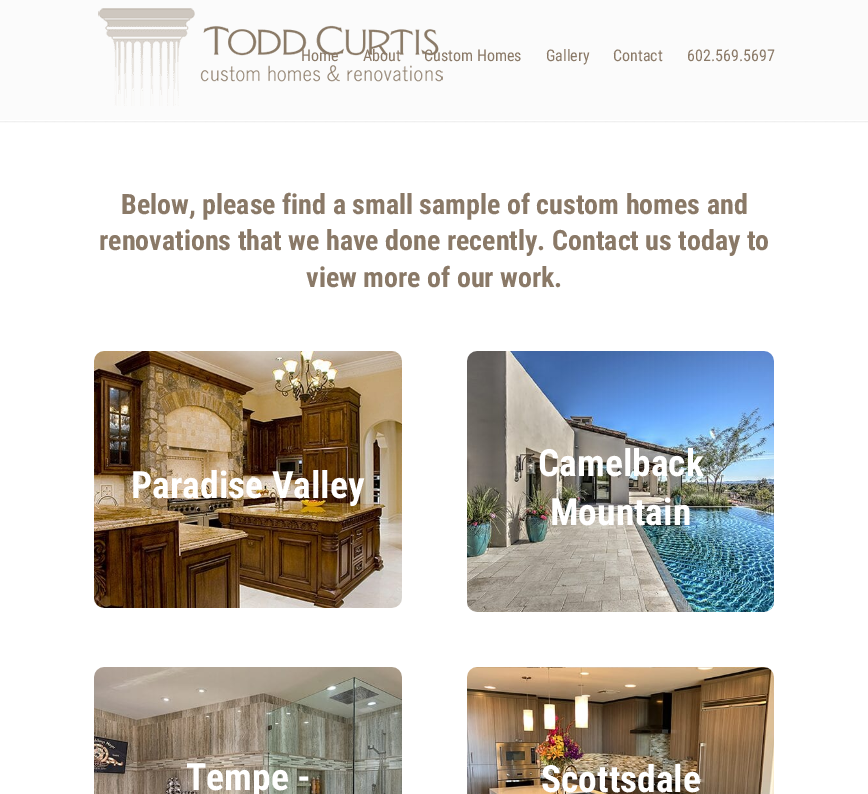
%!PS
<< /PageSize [868 794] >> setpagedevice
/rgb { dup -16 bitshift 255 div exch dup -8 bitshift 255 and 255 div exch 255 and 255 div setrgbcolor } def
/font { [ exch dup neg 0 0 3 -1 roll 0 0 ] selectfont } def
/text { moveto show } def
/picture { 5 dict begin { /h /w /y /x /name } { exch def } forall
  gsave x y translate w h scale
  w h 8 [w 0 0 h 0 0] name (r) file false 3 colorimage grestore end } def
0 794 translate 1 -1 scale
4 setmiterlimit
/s1 { /RobotoCondensed-Regular 16 font 16#8A7967 rgb } def
/s2 { /RobotoCondensed-Bold 28 font 16#8A7967 rgb } def
/s3 { /RobotoCondensed-Bold 37.5 font 16#FFFFFF rgb } def
16#FBFBFB rgb
0 0 868 794 rectfill
(pic1.raw) 98 8 345 98 picture
s1
(Home) 301 61 text
(About) 363 61 text
(Custom Homes) 424 61 text
(Gallery) 546 61 text
(Contact) 613 61 text
(602.569.5697) 687 61 text
16#FFFFFF rgb
0 120 868 674 rectfill
(pic2.raw) 0 121 868 2 picture
s2
(Below, please find a small sample of custom homes and) 121 214 text
(renovations that we have done recently. Contact us today to) 99 250 text
(view more of our work.) 306 287 text
(pic3.raw) 94 351 308 257 picture
s3
(Paradise Valley) 131 498 text
(pic4.raw) 467 351 307 261 picture
(Camelback) 538 476 text
(Mountain) 550 525 text
(pic5.raw) 94 667 308 127 picture
(Tempe -) 186 790 text
(pic6.raw) 467 667 307 127 picture
(Scottsdale) 541 792 text
showpage
